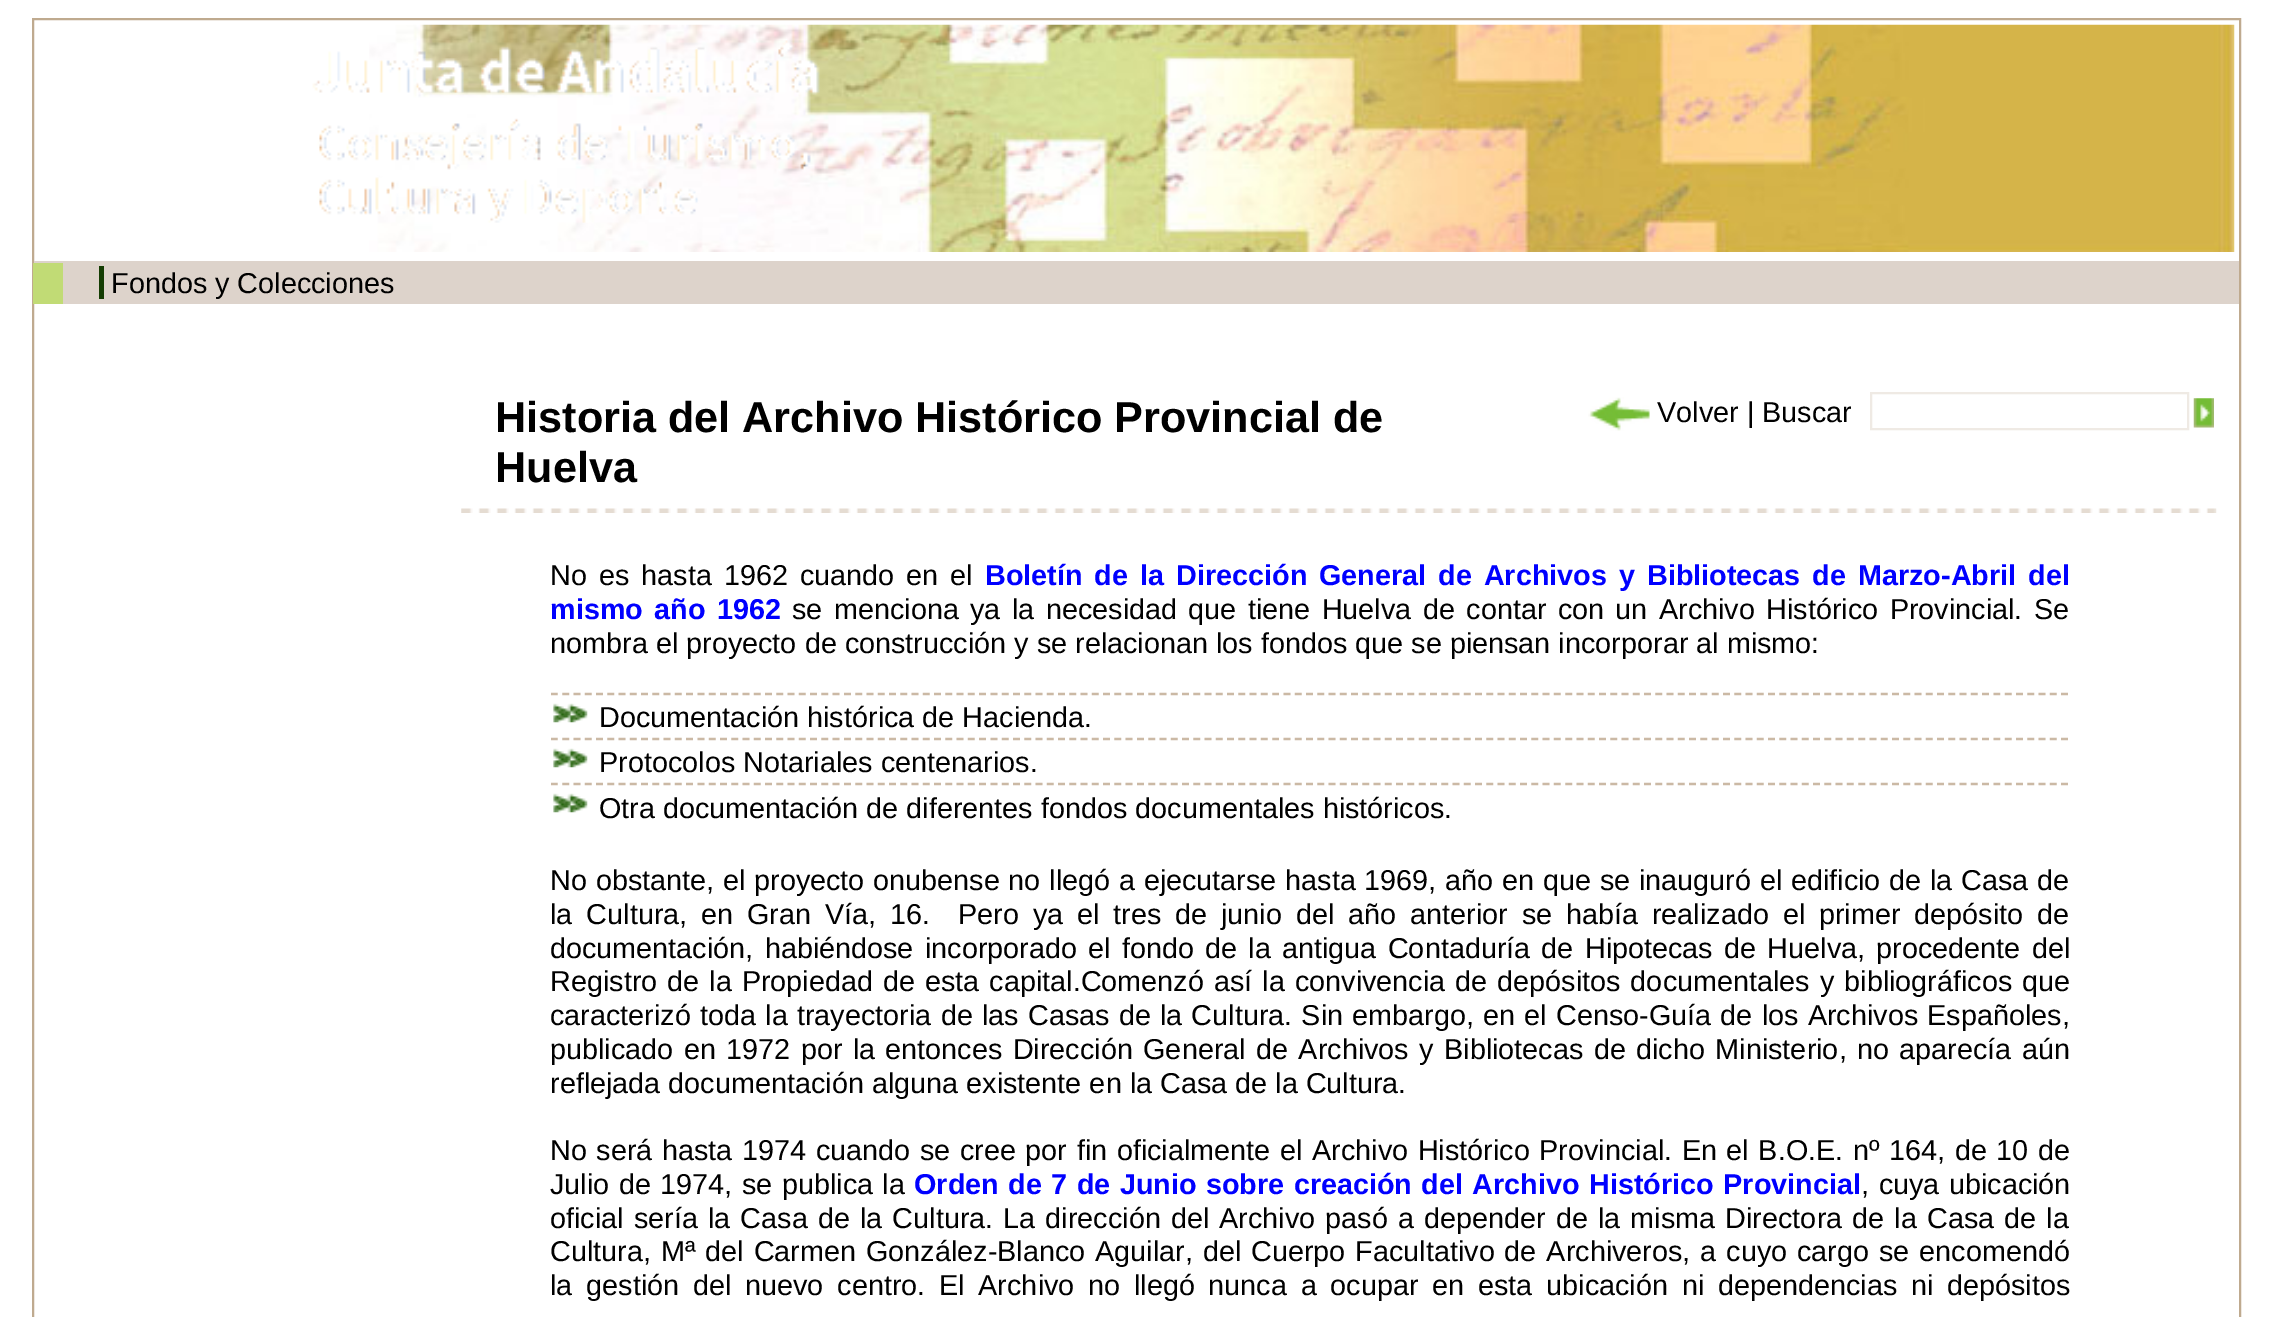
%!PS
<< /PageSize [2271 1317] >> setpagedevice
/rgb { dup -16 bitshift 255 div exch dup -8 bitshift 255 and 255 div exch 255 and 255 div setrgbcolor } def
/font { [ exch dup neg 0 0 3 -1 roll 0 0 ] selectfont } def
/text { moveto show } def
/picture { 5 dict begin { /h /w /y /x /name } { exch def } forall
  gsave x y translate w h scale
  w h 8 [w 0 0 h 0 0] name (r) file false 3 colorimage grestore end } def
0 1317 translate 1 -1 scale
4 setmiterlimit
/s1 { /LiberationSans-Regular 28.8 font 16#000000 rgb } def
/s2 { /LiberationSans-Bold 43.2 font 16#000000 rgb } def
16#FFFFFF rgb
0 0 2271 1317 rectfill
16#BFAA8F rgb
2 setlinewidth
33 19 2207 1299 rectstroke
(pic1.raw) 369 24 1866 228 picture
(pic2.raw) 312 40 508 183 picture
16#DDD3CB rgb
34 261 2205 43 rectfill
16#C1DB75 rgb
33 263 30 41 rectfill
16#143D03 rgb
99 266 5 33 rectfill
s1
(Fondos y Colecciones) 111 293 text
s2
(Historia del Archivo Histórico Provincial de) 495 432 text
(Huelva) 495 482 text
(pic3.raw) 1588 397 62 34 picture
s1
(Volver | Buscar) 1657 422 text
16#EFEAE4 rgb
1871 393 317 36 rectstroke
(pic4.raw) 2193 398 21 30 picture
(pic5.raw) 461 508 1756 5 picture
16#000000 rgb
550 585 moveto 4 0 32 (No es hasta 1962 cuando en el) widthshow
/LiberationSans-Bold 28.8 font
16#0000FF rgb
985 585 moveto 3.9 0 32 (Boletín de la Dirección General de Archivos y Bibliotecas de Marzo-Abril del) widthshow
550 619 moveto 3.4 0 32 (mismo año 1962) widthshow
/LiberationSans-Regular 28.8 font
16#000000 rgb
792 619 moveto 3.4 0 32 (se menciona ya la necesidad que tiene Huelva de contar con un Archivo Histórico Provincial. Se) widthshow
(nombra el proyecto de construcción y se relacionan los fondos que se piensan incorporar al mismo:) 550 653 text
(pic6.raw) 553 703 35 20 picture
16#CBB9A5 rgb
2.2 setlinewidth
[6.75 4.52] 0 setdash
551 694 moveto 2070 694 lineto stroke
s1
(Documentación histórica de Hacienda.) 599 727 text
(pic6.raw) 553 748 35 20 picture
16#CBB9A5 rgb
551 739 moveto 2070 739 lineto stroke
s1
(Protocolos Notariales centenarios.) 599 772 text
(pic6.raw) 553 793 35 20 picture
16#CBB9A5 rgb
551 784 moveto 2070 784 lineto stroke
s1
(Otra documentación de diferentes fondos documentales históricos.) 599 818 text
550 890 moveto 0.75 0 32 (No obstante, el proyecto onubense no llegó a ejecutarse hasta 1969, año en que se inauguró el edificio de la Casa de) widthshow
550 924 moveto 5.9 0 32 (la Cultura, en Gran Vía, 16.  Pero ya el tres de junio del año anterior se había realizado el primer depósito de) widthshow
550 958 moveto 3.25 0 32 (documentación, habiéndose incorporado el fondo de la antigua Contaduría de Hipotecas de Huelva, procedente del) widthshow
550 991 moveto 2 0 32 (Registro de la Propiedad de esta capital.Comenzó así la convivencia de depósitos documentales y bibliográficos que) widthshow
550 1025 moveto 1.2 0 32 (caracterizó toda la trayectoria de las Casas de la Cultura. Sin embargo, en el Censo-Guía de los Archivos Españoles,) widthshow
550 1059 moveto 2.4 0 32 (publicado en 1972 por la entonces Dirección General de Archivos y Bibliotecas de dicho Ministerio, no aparecía aún) widthshow
(reflejada documentación alguna existente en la Casa de la Cultura.) 550 1093 text
550 1160 moveto 1.6 0 32 (No será hasta 1974 cuando se cree por fin oficialmente el Archivo Histórico Provincial. En el B.O.E. nº 164, de 10 de) widthshow
550 1194 moveto 1.5 0 32 (Julio de 1974, se publica la) widthshow
/LiberationSans-Bold 28.8 font
16#0000FF rgb
914 1194 moveto 1.4 0 32 (Orden de 7 de Junio sobre creación del Archivo Histórico Provincial) widthshow
/LiberationSans-Regular 28.8 font
16#000000 rgb
1861 1194 moveto 1.5 0 32 (, cuya ubicación) widthshow
550 1228 moveto 2.1 0 32 (oficial sería la Casa de la Cultura. La dirección del Archivo pasó a depender de la misma Directora de la Casa de la) widthshow
550 1261 moveto 1.9 0 32 (Cultura, Mª del Carmen González-Blanco Aguilar, del Cuerpo Facultativo de Archiveros, a cuyo cargo se encomendó) widthshow
550 1295 moveto 5.75 0 32 (la gestión del nuevo centro. El Archivo no llegó nunca a ocupar en esta ubicación ni dependencias ni depósitos) widthshow
showpage
